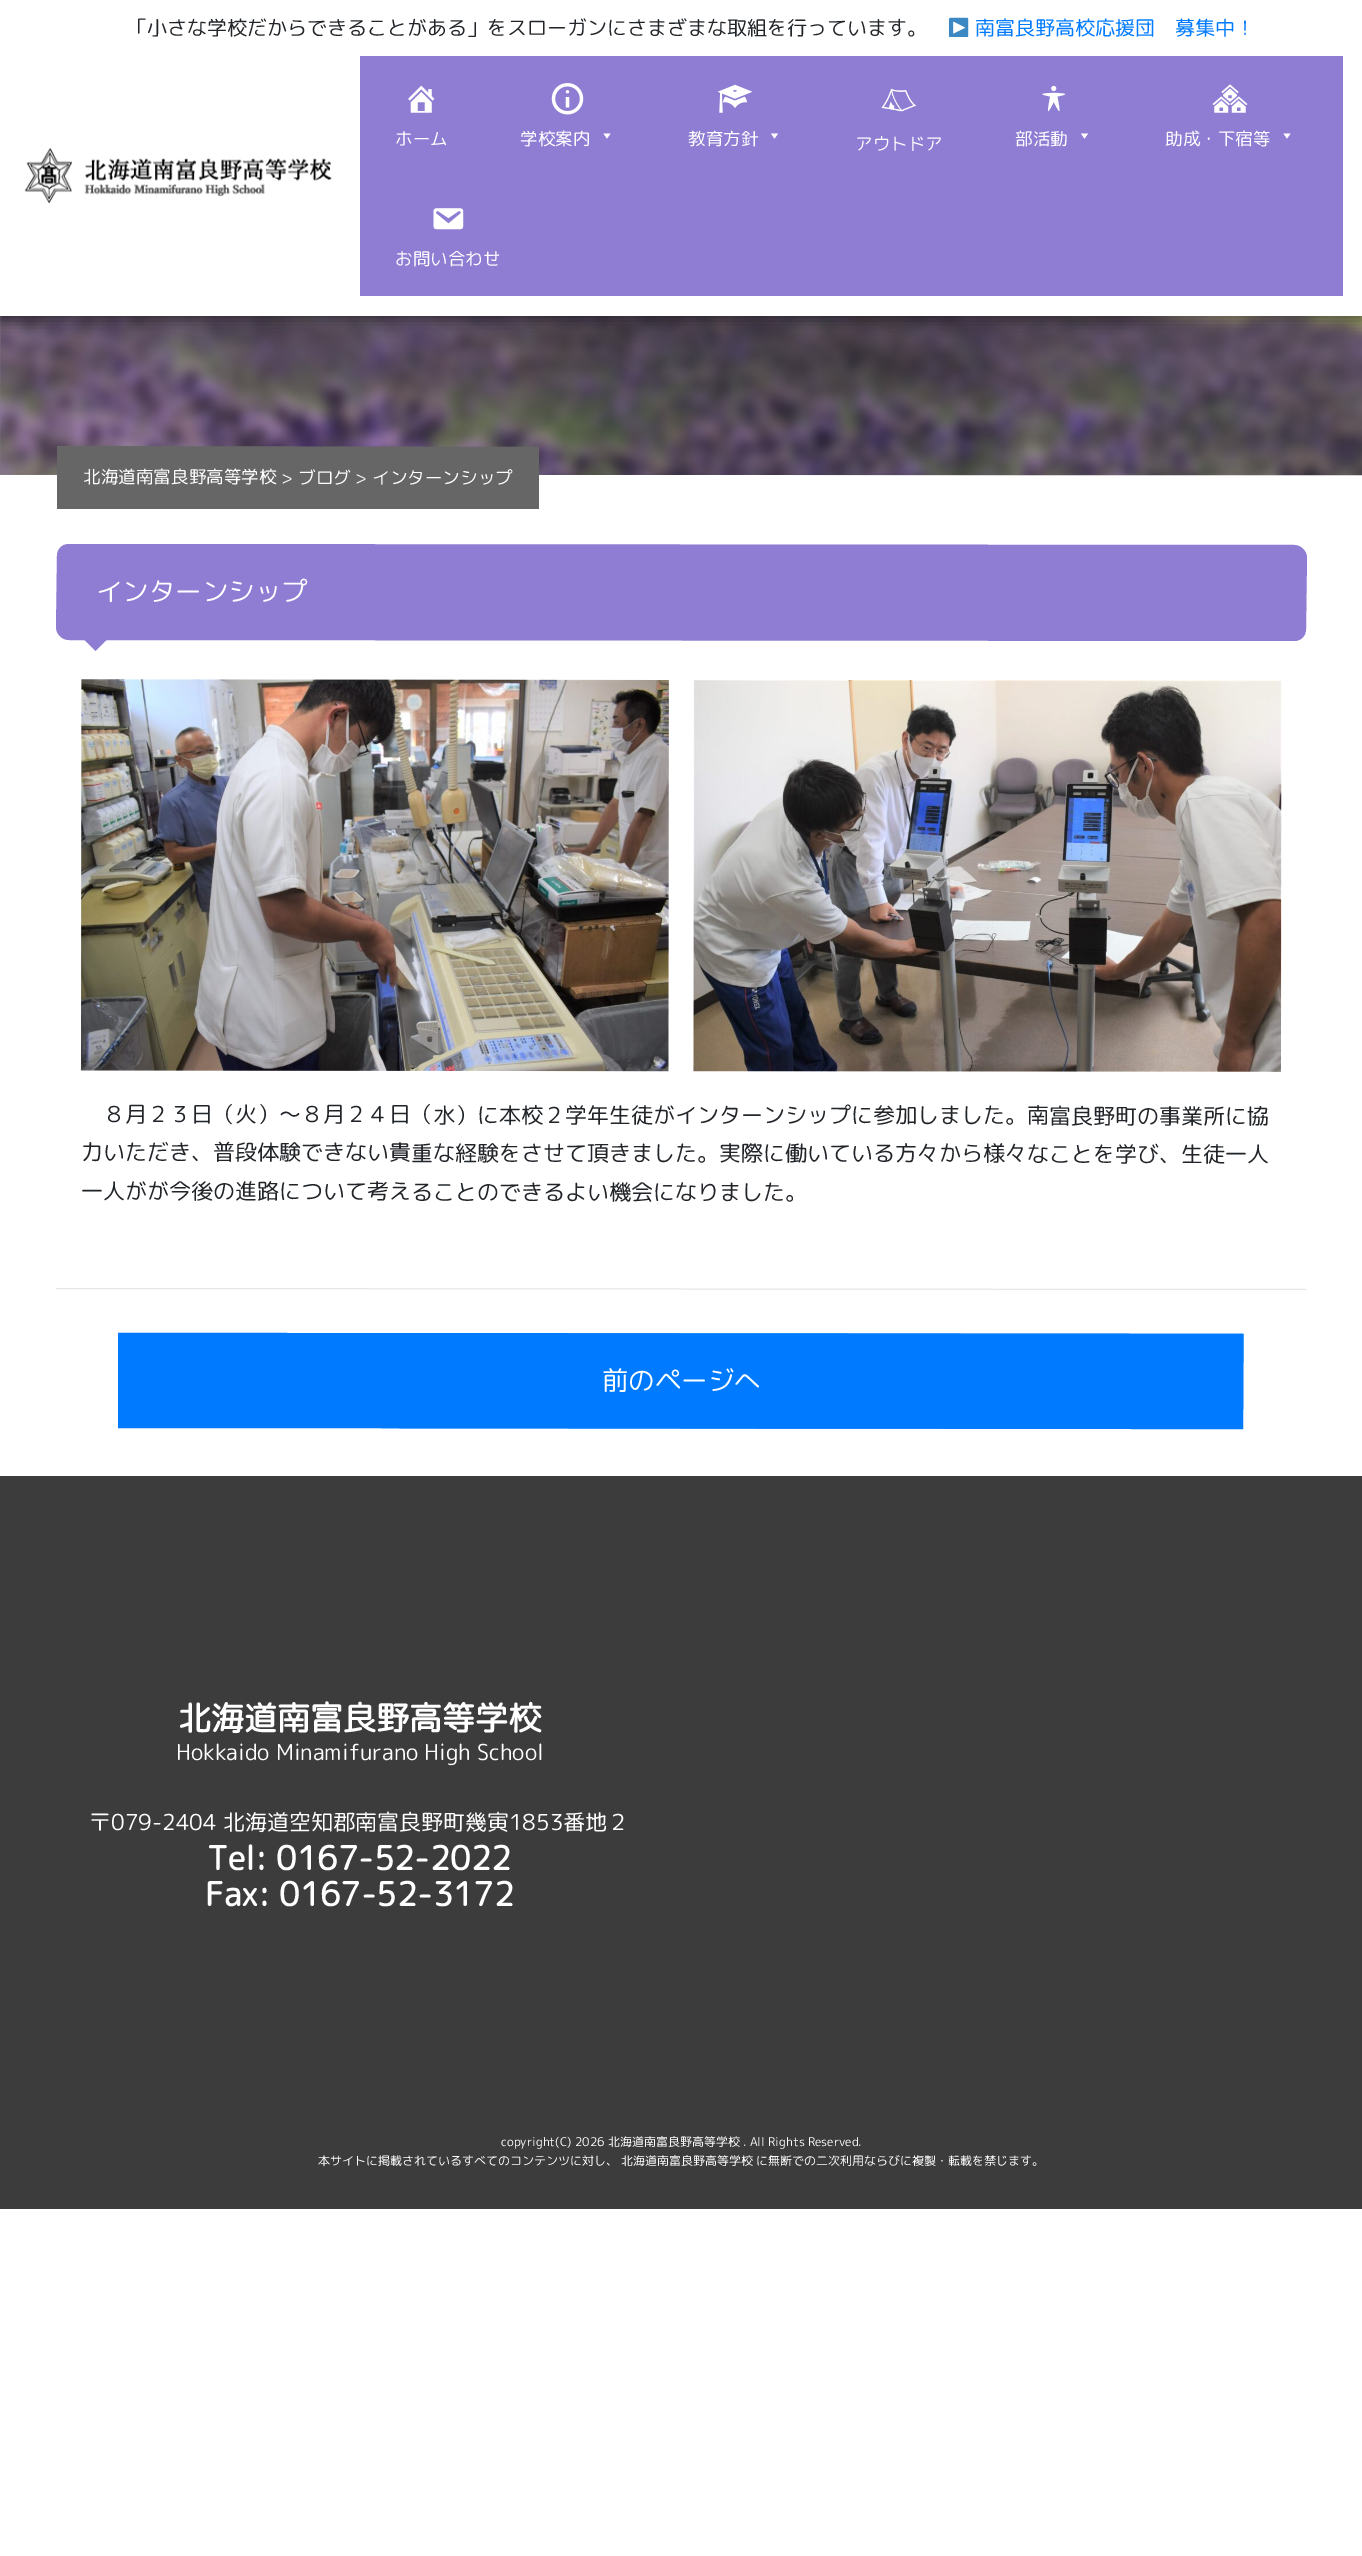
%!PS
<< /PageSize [1362 2556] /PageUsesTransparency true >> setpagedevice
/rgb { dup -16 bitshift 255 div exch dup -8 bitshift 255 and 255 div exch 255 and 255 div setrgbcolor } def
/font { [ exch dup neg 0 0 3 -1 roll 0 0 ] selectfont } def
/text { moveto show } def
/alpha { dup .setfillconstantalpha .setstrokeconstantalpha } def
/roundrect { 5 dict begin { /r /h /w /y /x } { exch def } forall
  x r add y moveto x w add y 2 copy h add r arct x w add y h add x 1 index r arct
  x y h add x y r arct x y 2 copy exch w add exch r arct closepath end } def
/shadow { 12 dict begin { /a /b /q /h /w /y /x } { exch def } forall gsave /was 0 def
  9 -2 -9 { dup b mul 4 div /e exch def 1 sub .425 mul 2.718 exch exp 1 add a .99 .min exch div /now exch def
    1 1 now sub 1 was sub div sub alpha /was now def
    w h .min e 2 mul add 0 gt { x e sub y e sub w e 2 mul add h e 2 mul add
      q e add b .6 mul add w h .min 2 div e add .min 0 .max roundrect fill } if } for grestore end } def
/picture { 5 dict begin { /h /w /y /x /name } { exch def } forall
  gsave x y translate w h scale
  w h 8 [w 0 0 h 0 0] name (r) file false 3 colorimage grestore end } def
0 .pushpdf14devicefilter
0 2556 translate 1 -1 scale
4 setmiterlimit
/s1 { /RoundedMplus1c-Regular 20 font 16#212529 rgb } def
/s2 { /RoundedMplus1c-Regular 20 font 16#007BFF rgb } def
/s3 { /RoundedMplus1c-Regular 17.5 font 16#FFFFFF rgb } def
/s4 { /RoundedMplus1c-Bold 33 font 16#FFFFFF rgb } def
/s5 { /RoundedMplus1c-Regular 22 font 16#FFFFFF rgb } def
/s6 { /RoundedMplus1c-Regular 12 font 16#FFFFFF rgb } def
16#FFFFFF rgb
0 0 1362 2556 rectfill
16#888888 rgb
0 316 57 159 rectfill
(pic10.raw) 0 316 1362 160 picture
16#000000 rgb
0 4 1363 316 0 7.5 0.44 shadow
16#FFFFFF rgb
0 0 1362 316 rectfill
s1
(「小さな学校だからできることがある」をスローガンにさまざまな取組を行っています。) 127 35 text
(pic1.raw) 948 17 21 20 picture
s2
(南富良野高校応援団　募集中！) 975 35 text
(pic2.raw) 24 147 308 57 picture
16#8E7DD3 rgb
360 56 983 240 rectfill
(pic3.raw) 408 85 27 28 picture
s3
(ホーム) 395 145 text
(pic4.raw) 551 83 33 32 picture
(学校案内) 520 145 text
610.5 133.5 moveto 607 138.5 lineto 603.5 133.5 lineto closepath fill
(pic5.raw) 717 84 36 29 picture
(教育方針) 688 145 text
778 133.5 moveto 774.5 138.5 lineto 771 133.5 lineto closepath fill
(pic6.raw) 881 88 36 24 picture
(アウトドア) 855 150 text
(pic7.raw) 1042 85 24 27 picture
(部活動) 1015 145 text
1088 133.5 moveto 1084.5 138.5 lineto 1081 133.5 lineto closepath fill
(pic8.raw) 1212 84 36 29 picture
(助成・下宿等) 1165 145 text
1290.5 133.5 moveto 1287 138.5 lineto 1283.5 133.5 lineto closepath fill
(pic9.raw) 433 208 31 22 picture
(お問い合わせ) 395 265 text
16#666666 rgb
57 446 moveto 539 447 lineto 539 509 lineto 57 509 lineto closepath fill
/RoundedMplus1c-Regular 17.6 font
16#FFFFFF rgb
gsave 83 483 translate 0.1 rotate 0 0 moveto (北海道南富良野高等学校) show grestore
gsave 281 484 translate 0.1 rotate 0 0 moveto (>) show grestore
gsave 298 484 translate 0.1 rotate 0 0 moveto (ブログ) show grestore
gsave 355 484 translate 0.1 rotate 0 0 moveto (>) show grestore
gsave 372 484 translate 0.1 rotate 0 0 moveto (インターンシップ) show grestore
16#8E7DD3 rgb
69 544 moveto 1294 545 lineto 1301 545 1307 551 1307 558 curveto 1306 629 lineto 1306 636 1301 641 1294 641 curveto 69 640 lineto 62 640 56 634 56 627 curveto 57 556 lineto 57 549 62 544 69 544 curveto closepath fill
/RoundedMplus1c-Regular 26.5 font
16#FFFFFF rgb
gsave 96 601 translate 0.1 rotate 0 0 moveto (インターンシップ) show grestore
16#8E7DD3 rgb
83 638.5 moveto 108 638.5 lineto 95.5 651 lineto closepath fill
(pic11.raw) 80 679 589 393 picture
(pic12.raw) 693 680 589 392 picture
/RoundedMplus1c-Regular 22 font
16#212529 rgb
gsave 103 1122 translate 0.1 rotate 0 0 moveto (８月２３日（火）～８月２４日（水）に本校２学年生徒がインターンシップに参加しました。南富良野町の事業所に協) show grestore
gsave 81 1160 translate 0.1 rotate 0 0 moveto (力いただき、普段体験できない貴重な経験をさせて頂きました。実際に働いている方々から様々なことを学び、生徒一人) show grestore
gsave 81 1199 translate 0.1 rotate 0 0 moveto (一人がが今後の進路について考えることのできるよい機会になりました。) show grestore
16#E6E6E6 rgb
56 1288 moveto 1306 1289 lineto 1306 1290 lineto 56 1289 lineto closepath fill
16#007BFF rgb
118 1333 moveto 1243 1334 lineto 1243 1429 lineto 118 1428 lineto closepath fill
1.3 setlinewidth
119 1333.5 moveto 1243 1334.5 lineto 1242.5 1428.5 lineto 119 1427 lineto closepath stroke
/RoundedMplus1c-Regular 26.5 font
16#FFFFFF rgb
gsave 602 1390 translate 0.1 rotate 0 0 moveto (前のページへ) show grestore
16#3C3C3C rgb
0 1476 1362 733 rectfill
s4
(北海道南富良野高等学校) 178 1730 text
s5
(Hokkaido Minamifurano High School) 176 1760 text
(〒079-2404 北海道空知郡南富良野町幾寅1853番地２) 89 1830 text
s4
(Tel: 0167-52-2022) 207 1870 text
(Fax: 0167-52-3172) 205 1906 text
s6
(copyright\(C\) 2026 北海道南富良野高等学校 . All Rights Reserved.) 501 2146 text
(本サイトに掲載されているすべてのコンテンツに対し、 北海道南富良野高等学校 に無断での二次利用ならびに複製・転載を禁じます。) 318 2165 text
.poppdf14devicefilter showpage
